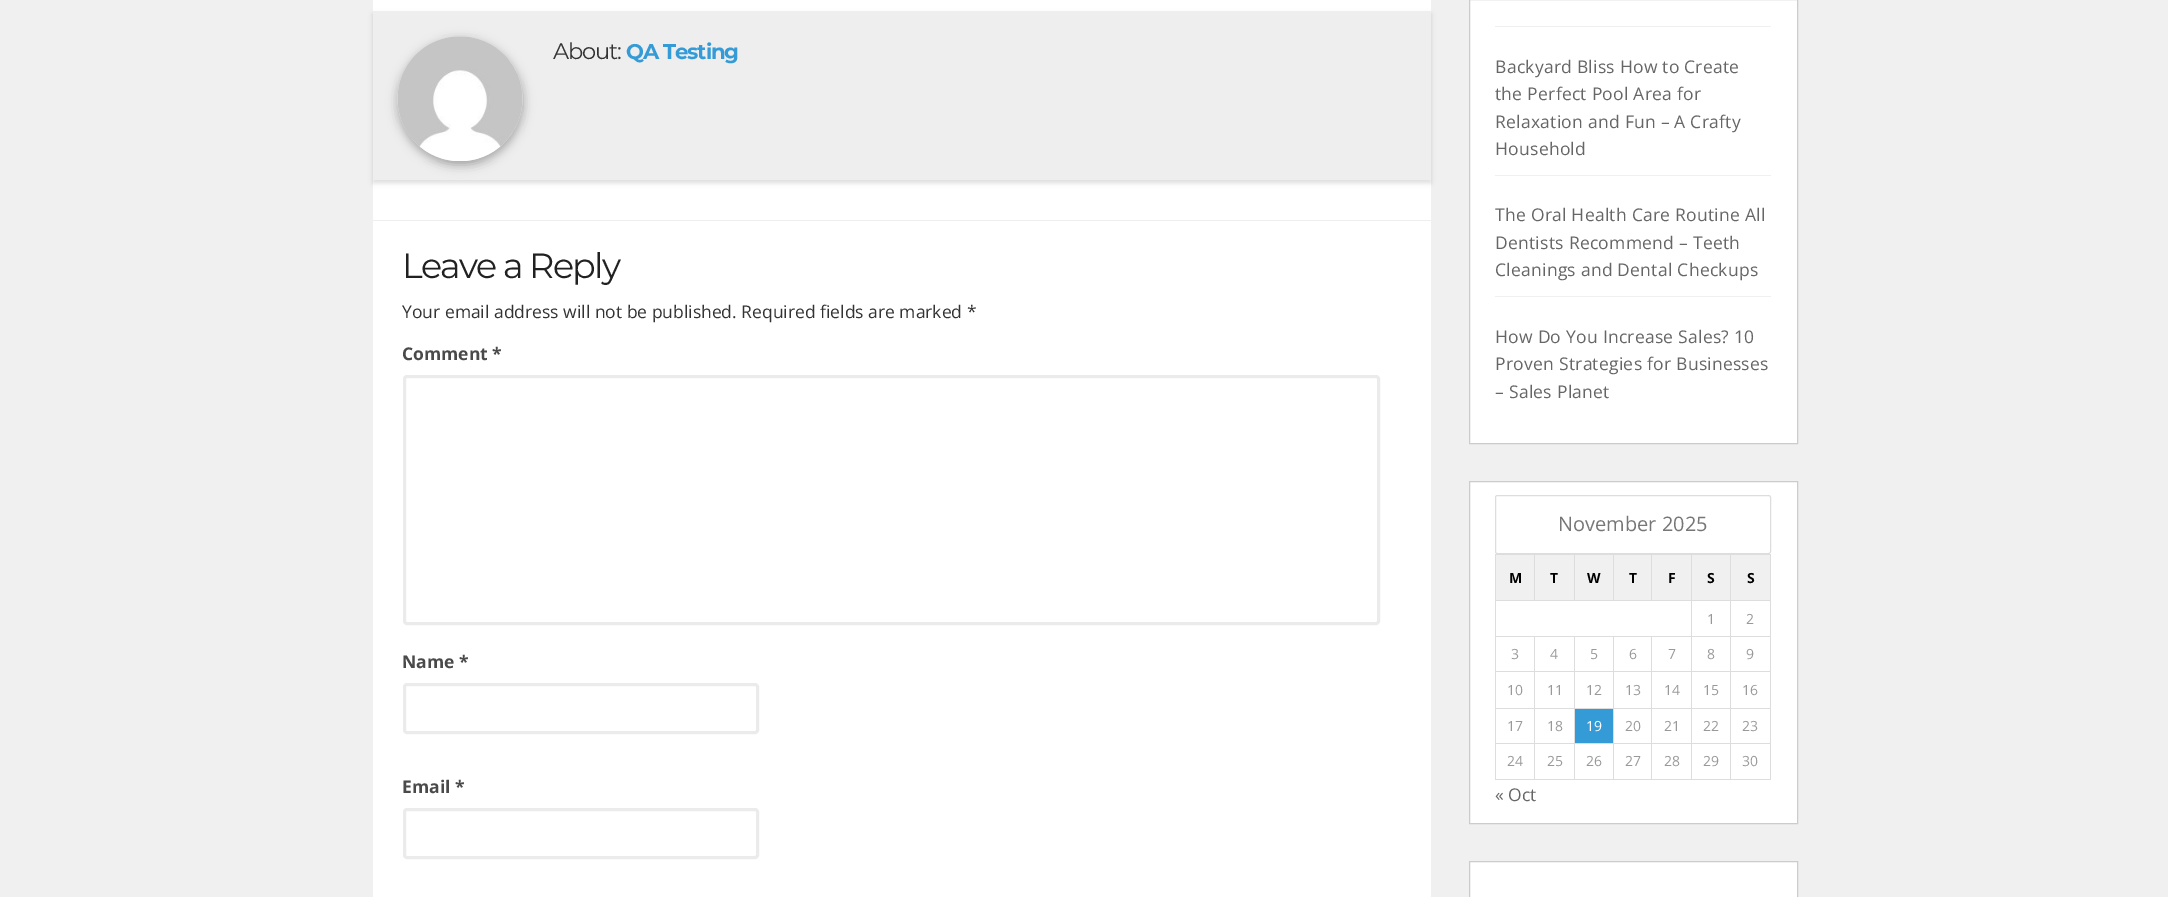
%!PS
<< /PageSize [2168 897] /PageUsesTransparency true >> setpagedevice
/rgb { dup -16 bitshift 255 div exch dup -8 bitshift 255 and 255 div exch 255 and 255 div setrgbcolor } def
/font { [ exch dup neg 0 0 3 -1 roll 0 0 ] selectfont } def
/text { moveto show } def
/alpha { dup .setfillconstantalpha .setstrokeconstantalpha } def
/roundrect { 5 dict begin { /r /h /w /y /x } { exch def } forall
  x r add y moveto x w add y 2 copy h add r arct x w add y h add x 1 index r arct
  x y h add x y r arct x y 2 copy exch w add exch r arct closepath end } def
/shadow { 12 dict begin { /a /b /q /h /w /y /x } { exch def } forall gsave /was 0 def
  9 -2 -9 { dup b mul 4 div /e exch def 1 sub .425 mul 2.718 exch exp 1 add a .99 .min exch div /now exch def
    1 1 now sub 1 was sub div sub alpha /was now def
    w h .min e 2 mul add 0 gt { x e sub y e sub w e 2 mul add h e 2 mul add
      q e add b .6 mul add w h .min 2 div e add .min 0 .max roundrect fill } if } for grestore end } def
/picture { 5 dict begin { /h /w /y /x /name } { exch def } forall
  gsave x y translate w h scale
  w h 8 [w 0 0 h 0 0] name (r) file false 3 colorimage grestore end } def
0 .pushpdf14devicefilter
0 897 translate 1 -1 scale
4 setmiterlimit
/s1 { /OpenSans-Regular 17.5 font 16#333333 rgb } def
/s2 { /OpenSans-Bold 17.5 font 16#4A4A4A rgb } def
/s3 { /OpenSans-Regular 20 font 16#777777 rgb } def
/s4 { /OpenSans-Bold 14 font 16#000000 rgb } def
/s5 { /OpenSans-Regular 14 font 16#999999 rgb } def
/s6 { /OpenSans-Regular 14 font 16#FFFFFF rgb } def
/s7 { /OpenSans-Regular 17.5 font 16#666666 rgb } def
16#F0F0F0 rgb
0 0 2168 897 rectfill
16#FFFFFF rgb
373 0 1058 897 rectfill
16#000000 rgb
373 14 1058 169 0 2.5 0.13 shadow
16#EEEEEE rgb
373 11 1058 169 rectfill
16#000000 rgb
398 40 125 125 62.5 4 0.16 shadow
398 40 125 125 62.5 6 0.18 shadow
(pic1.raw) 397 36 126 125 picture
/Montserrat-Regular 22.5 font
16#333333 rgb
553 59 moveto -1.1 0 (About:) ashow
/Montserrat-Bold 21.25 font
16#349BD6 rgb
626 59 moveto -1.1 0 (QA Testing) ashow
16#EEEEEE rgb
373 220 1058 1 rectfill
/Montserrat-Regular 35 font
16#212121 rgb
402 278 moveto -1.75 0 (Leave a Reply) ashow
s1
(Your email address will not be published. Required fields are marked *) 402 318 text
s2
(Comment *) 402 360 text
16#EBEBEB rgb
3 setlinewidth
404.5 376.5 974 247 2.5 roundrect stroke
s2
(Name *) 402 668 text
16#EBEBEB rgb
404.5 684.5 353 48 2.5 roundrect stroke
s2
(Email *) 402 793 text
16#EBEBEB rgb
404.5 809.5 353 48 2.5 roundrect stroke
16#FFFFFF rgb
1469.5 -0.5 moveto 1797.5 -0.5 lineto 1797.5 443.5 lineto 1469.5 443.5 lineto closepath gsave fill grestore
16#CCCCCC rgb
1 setlinewidth
stroke
16#F0F0F0 rgb
1495 26 276 1 rectfill
1495 175 276 1 rectfill
/OpenSans-Regular 17.5 font
16#666666 rgb
1495 73 moveto 0.25 0 (Backyard Bliss How to Create) ashow
1495 100 moveto 0.25 0 (the Perfect Pool Area for) ashow
1495 128 moveto 0.25 0 (Relaxation and Fun – A Crafty) ashow
1495 155 moveto 0.25 0 (Household) ashow
16#F0F0F0 rgb
1495 296 276 1 rectfill
16#666666 rgb
1495 221 moveto 0.25 0 (The Oral Health Care Routine All) ashow
1495 249 moveto 0.25 0 (Dentists Recommend – Teeth) ashow
1495 276 moveto 0.25 0 (Cleanings and Dental Checkups) ashow
1495 343 moveto 0.25 0 (How Do You Increase Sales? 10) ashow
1495 370 moveto 0.25 0 (Proven Strategies for Businesses) ashow
1495 398 moveto 0.25 0 (– Sales Planet) ashow
16#FFFFFF rgb
1469.5 481.5 moveto 1797.5 481.5 lineto 1797.5 823.5 lineto 1469.5 823.5 lineto closepath gsave fill grestore
16#CCCCCC rgb
stroke
16#DDDDDD rgb
1495.5 495.5 275 58 2 roundrect stroke
s3
(November 2025) 1558 531 text
16#F0F0F0 rgb
1496 555 38 45 rectfill
16#DDDDDD rgb
1730 554 41 1 rectfill
1730 600 41 1 rectfill
1730 636 41 1 rectfill
1730 671 41 1 rectfill
1730 708 41 1 rectfill
1730 743 41 1 rectfill
1770 743 1 37 rectfill
1730 779 41 1 rectfill
1730 743 1 37 rectfill
1691 743 40 1 rectfill
1730 708 1 36 rectfill
1691 708 40 1 rectfill
1730 671 1 38 rectfill
1691 671 40 1 rectfill
1730 636 1 37 rectfill
1691 636 40 1 rectfill
1730 600 1 38 rectfill
1691 600 40 1 rectfill
1730 554 1 47 rectfill
1691 554 40 1 rectfill
1691 779 40 1 rectfill
1691 743 1 37 rectfill
1651 743 42 1 rectfill
1691 708 1 36 rectfill
1651 708 42 1 rectfill
1691 671 1 38 rectfill
1651 671 42 1 rectfill
1691 636 1 37 rectfill
1651 636 42 1 rectfill
1691 600 1 38 rectfill
1495 600 198 1 rectfill
1691 554 1 47 rectfill
1651 554 42 1 rectfill
16#F0F0F0 rgb
1614 555 77 45 rectfill
16#DDDDDD rgb
1651 554 1 47 rectfill
1613 554 40 1 rectfill
1613 554 1 47 rectfill
1574 554 40 1 rectfill
1574 554 1 47 rectfill
1534 554 41 1 rectfill
1534 554 1 47 rectfill
1495 554 40 1 rectfill
1651 779 42 1 rectfill
1651 743 1 37 rectfill
1613 743 40 1 rectfill
1651 708 1 36 rectfill
1613 708 40 1 rectfill
1651 671 1 38 rectfill
1613 671 40 1 rectfill
1651 636 1 37 rectfill
1613 636 40 1 rectfill
1613 779 40 1 rectfill
1613 743 1 37 rectfill
1574 743 40 1 rectfill
1613 708 1 36 rectfill
1574 708 40 1 rectfill
1613 671 1 38 rectfill
1574 671 40 1 rectfill
1613 636 1 37 rectfill
1574 636 40 1 rectfill
1574 779 40 1 rectfill
1574 743 1 37 rectfill
1534 743 41 1 rectfill
1574 708 1 36 rectfill
1534 708 41 1 rectfill
1574 671 1 38 rectfill
1534 671 41 1 rectfill
1574 636 1 37 rectfill
1534 636 41 1 rectfill
1534 779 41 1 rectfill
1534 743 1 37 rectfill
1495 743 40 1 rectfill
1534 708 1 36 rectfill
1495 708 40 1 rectfill
1534 671 1 38 rectfill
1495 671 40 1 rectfill
1534 636 1 37 rectfill
1495 636 40 1 rectfill
1495 779 40 1 rectfill
1495 743 1 37 rectfill
1495 708 1 36 rectfill
1495 671 1 38 rectfill
1495 636 1 37 rectfill
1495 600 1 38 rectfill
1495 554 1 47 rectfill
s4
(M) 1509 583 text
16#F0F0F0 rgb
1535 555 39 45 rectfill
s4
(T) 1550 583 text
16#F0F0F0 rgb
1575 555 38 45 rectfill
s4
(W) 1587 583 text
(T) 1629 583 text
(F) 1668 583 text
16#F0F0F0 rgb
1692 555 38 45 rectfill
s4
(S) 1707 583 text
16#F0F0F0 rgb
1731 555 39 45 rectfill
16#DDDDDD rgb
1770 708 1 36 rectfill
1770 671 1 38 rectfill
1770 636 1 37 rectfill
1770 600 1 38 rectfill
1770 554 1 47 rectfill
s4
(S) 1747 583 text
s5
(1) 1707 624 text
(2) 1746 624 text
(3) 1511 659 text
(4) 1550 659 text
(5) 1590 659 text
(6) 1629 659 text
(7) 1668 659 text
(8) 1707 659 text
(9) 1746 659 text
(10) 1507 695 text
(11) 1547 695 text
(12) 1586 695 text
(13) 1625 695 text
(14) 1664 695 text
(15) 1703 695 text
(16) 1742 695 text
(17) 1507 731 text
(18) 1547 731 text
16#349BD6 rgb
1575 709 38 34 rectfill
s6
(19) 1586 731 text
s5
(20) 1625 731 text
(21) 1664 731 text
(22) 1703 731 text
(23) 1742 731 text
(24) 1507 766 text
(25) 1547 766 text
(26) 1586 766 text
(27) 1625 766 text
(28) 1664 766 text
(29) 1703 766 text
(30) 1742 766 text
s7
(« Oct) 1495 801 text
16#FFFFFF rgb
1469.5 861.5 moveto 1797.5 861.5 lineto 1797.5 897.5 lineto 1469.5 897.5 lineto closepath gsave fill grestore
16#CCCCCC rgb
stroke
.poppdf14devicefilter showpage
